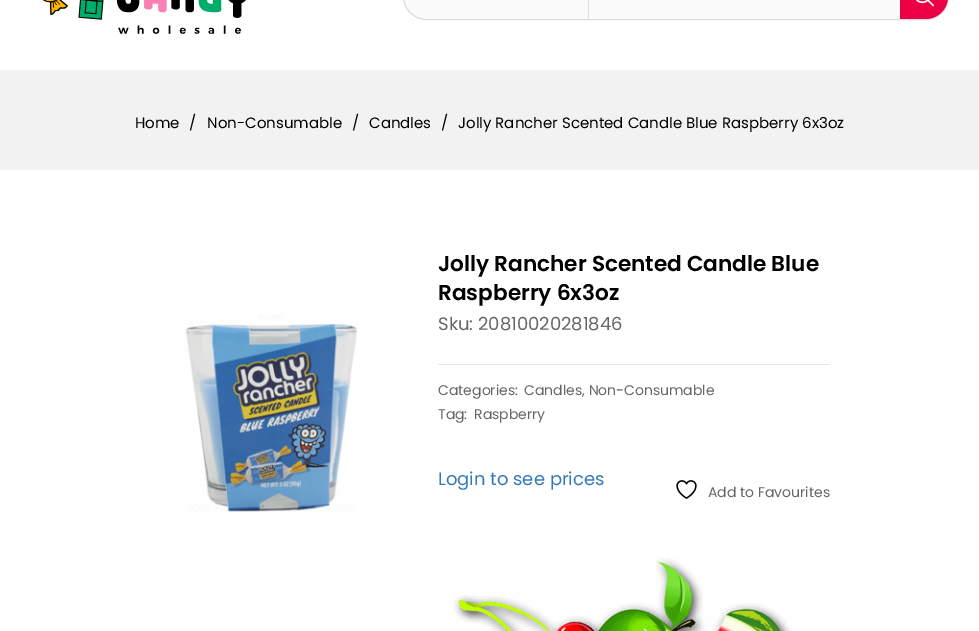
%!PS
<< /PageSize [979 631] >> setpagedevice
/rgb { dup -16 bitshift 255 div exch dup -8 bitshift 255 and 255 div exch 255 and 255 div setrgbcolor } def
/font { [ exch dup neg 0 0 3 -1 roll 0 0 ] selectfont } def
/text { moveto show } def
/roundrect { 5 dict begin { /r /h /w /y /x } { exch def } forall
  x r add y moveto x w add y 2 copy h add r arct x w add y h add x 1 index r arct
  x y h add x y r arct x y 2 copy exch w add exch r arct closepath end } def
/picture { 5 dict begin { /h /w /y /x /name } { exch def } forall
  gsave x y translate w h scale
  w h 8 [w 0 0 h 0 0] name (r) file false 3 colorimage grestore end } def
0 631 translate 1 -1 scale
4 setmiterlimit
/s1 { /Poppins-Regular 15 font 16#000000 rgb } def
/s2 { /Poppins-SemiBold 21.6 font 16#000000 rgb } def
/s3 { /Poppins-Regular 18 font 16#666666 rgb } def
/s4 { /Poppins-Regular 14 font 16#666666 rgb } def
/s5 { /Poppins-Regular 18 font 16#337AB7 rgb } def
16#FFFFFF rgb
0 0 979 631 rectfill
(pic1.raw) 43 0 203 34 picture
16#FAFAFA rgb
403.5 -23.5 545 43 22.5 roundrect gsave fill grestore
16#DDDDDD rgb
stroke
588 0 1 19 rectfill
16#EB0045 rgb
900 -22 moveto 926 -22 lineto 938 -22 948 -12 948 0 curveto 948 -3 lineto 948 9 938 19 926 19 curveto 900 19 lineto closepath fill
(pic2.raw) 916 0 18 7 picture
16#F2F2F2 rgb
0 70 979 100 rectfill
s1
(Home) 135 128 text
(/) 189 128 text
(Non-Consumable) 207 128 text
(/) 352 128 text
(Candles) 369 128 text
(/) 441 128 text
(Jolly Rancher Scented Candle Blue Raspberry 6x3oz) 458 128 text
(pic3.raw) 185 314 173 198 picture
s2
(Jolly Rancher Scented Candle Blue) 438 271 text
(Raspberry 6x3oz) 438 300 text
s3
(Sku: 20810020281846) 438 330 text
16#E6E6E6 rgb
438 364 392 1 rectfill
s4
(Categories:) 438 395 text
(Candles, Non-Consumable) 524 395 text
(Tag:) 438 419 text
(Raspberry) 474 419 text
s5
(Login to see prices) 438 485 text
(pic4.raw) 676 480 21 19 picture
s4
(Add to Favourites) 708 497 text
(pic5.raw) 453 556 339 75 picture
showpage
